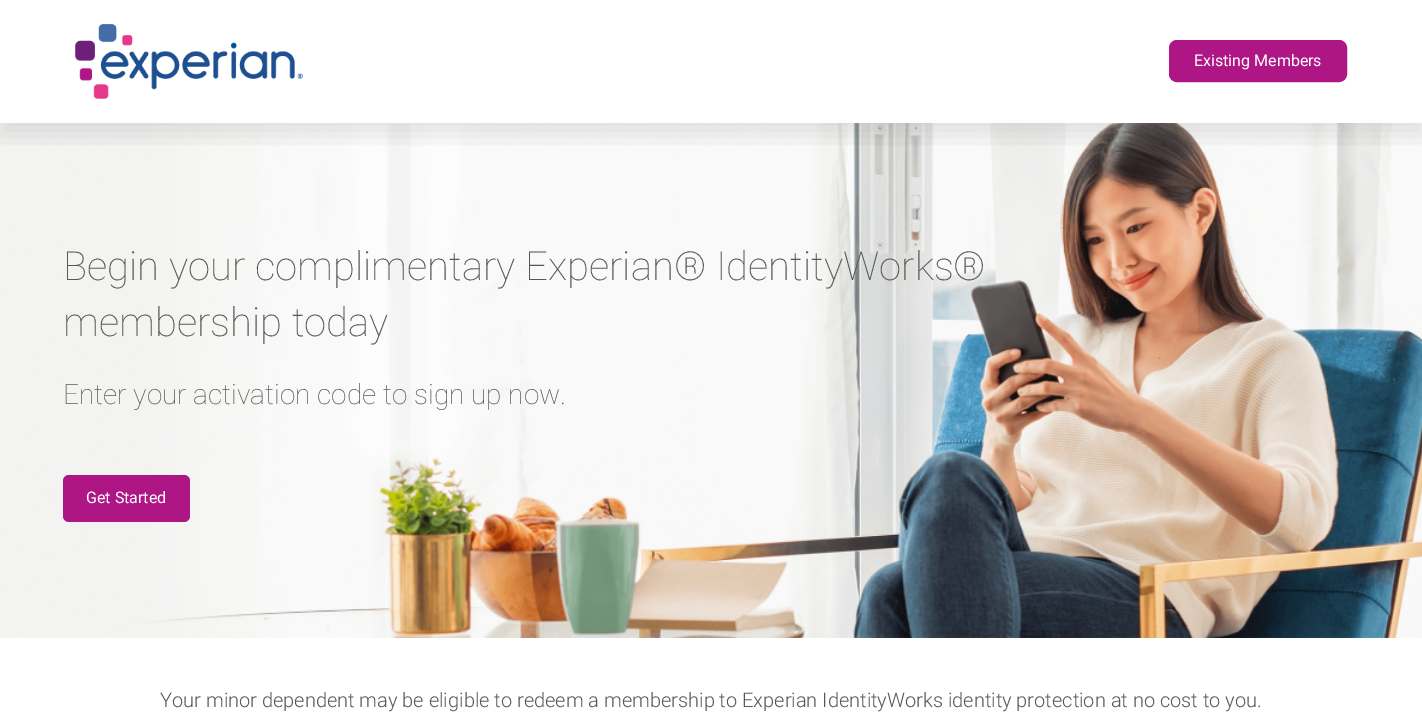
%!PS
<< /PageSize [1422 728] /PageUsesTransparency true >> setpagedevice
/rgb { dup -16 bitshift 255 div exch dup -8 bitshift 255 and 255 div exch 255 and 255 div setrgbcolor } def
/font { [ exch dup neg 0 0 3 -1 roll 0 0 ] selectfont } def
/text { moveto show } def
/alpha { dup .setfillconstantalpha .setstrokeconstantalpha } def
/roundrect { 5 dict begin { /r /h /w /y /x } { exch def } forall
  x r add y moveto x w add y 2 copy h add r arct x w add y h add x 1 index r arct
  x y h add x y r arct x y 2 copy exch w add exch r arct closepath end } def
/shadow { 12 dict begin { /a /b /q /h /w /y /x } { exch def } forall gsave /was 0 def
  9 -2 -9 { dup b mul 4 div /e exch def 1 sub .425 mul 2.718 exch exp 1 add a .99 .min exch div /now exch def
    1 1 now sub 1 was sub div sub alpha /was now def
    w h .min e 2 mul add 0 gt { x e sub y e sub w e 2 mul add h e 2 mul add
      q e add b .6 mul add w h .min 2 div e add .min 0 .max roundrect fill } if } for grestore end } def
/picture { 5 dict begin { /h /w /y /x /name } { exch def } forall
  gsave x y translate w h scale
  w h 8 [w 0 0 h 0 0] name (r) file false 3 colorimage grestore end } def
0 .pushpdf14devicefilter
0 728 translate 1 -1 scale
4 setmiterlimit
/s1 { /Roboto-Regular 16 font 16#FFFFFF rgb } def
/s2 { /Roboto-Thin 40 font 16#575755 rgb } def
/s3 { /Roboto-Thin 28 font 16#575755 rgb } def
/s4 { /Roboto-Light 20 font 16#575755 rgb } def
16#FFFFFF rgb
0 0 1422 728 rectfill
(pic2.raw) 0 123 1422 515 picture
gsave
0 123 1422 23 rectclip
16#000000 rgb
0 10 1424 125 0 12.5 0.1 shadow
grestore
(pic1.raw) 75 24 228 75 picture
16#AF1685 rgb
1169.5 40.5 177 41 7.5 roundrect gsave fill grestore
stroke
s1
(Existing Members) 1194 66 text
s2
(Begin your complimentary Experian® IdentityWorks®) 63 280 text
(membership today) 63 336 text
s3
(Enter your activation code to sign up now.) 63 404 text
16#AF1685 rgb
63 475 127 47 6 roundrect fill
s1
(Get Started) 86 503 text
s4
(Your minor dependent may be eligible to redeem a membership to Experian IdentityWorks identity protection at no cost to you.) 160 707 text
.poppdf14devicefilter showpage
